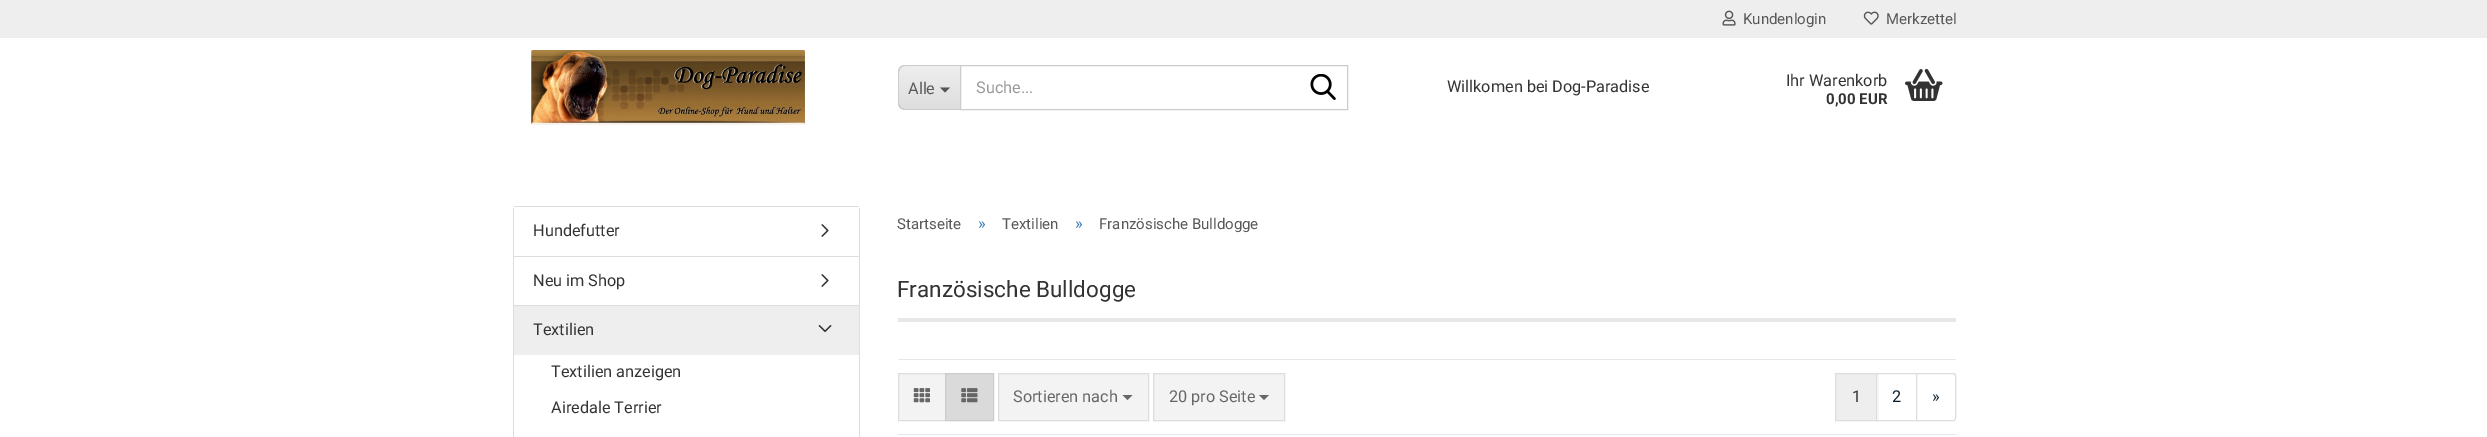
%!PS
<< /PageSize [2487 437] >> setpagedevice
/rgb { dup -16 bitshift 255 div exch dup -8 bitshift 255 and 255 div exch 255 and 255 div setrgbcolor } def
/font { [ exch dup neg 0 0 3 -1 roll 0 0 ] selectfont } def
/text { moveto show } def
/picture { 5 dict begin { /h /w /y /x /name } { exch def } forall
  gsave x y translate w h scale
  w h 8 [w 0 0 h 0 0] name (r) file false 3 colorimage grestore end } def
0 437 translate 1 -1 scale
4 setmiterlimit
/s1 { /Roboto-Regular 15 font 16#595959 rgb } def
/s2 { /Roboto-Regular 16.25 font 16#595959 rgb } def
/s3 { /Roboto-Regular 16.25 font 16#999999 rgb } def
/s4 { /Roboto-Regular 16.25 font 16#333333 rgb } def
/s5 { /Roboto-Bold 15 font 16#333333 rgb } def
/s6 { /Roboto-Regular 16.25 font 16#337AB7 rgb } def
/s7 { /Roboto-Regular 22.5 font 16#333333 rgb } def
/s8 { /Roboto-Regular 16.25 font 16#666666 rgb } def
/s9 { /Roboto-Regular 16.25 font 16#0C1D2B rgb } def
16#FFFFFF rgb
0 0 2487 437 rectfill
16#EEEEEE rgb
0 0 2487 38 rectfill
(pic1.raw) 1722 10 14 16 picture
s1
(Kundenlogin) 1743 24 text
(pic2.raw) 1863 11 16 14 picture
(Merkzettel) 1886 24 text
(pic3.raw) 531 50 274 75 picture
gsave
906 65 moveto 960 65 lineto 960 110 lineto 906 110 lineto 901.5 110 898 106.5 898 102 curveto 898 73 lineto 898 68.5 901.5 65 906 65 curveto closepath clip newpath
gsave 898 66 moveto 960 66 lineto 960 109 lineto 898 109 lineto closepath clip newpath
<< /ShadingType 2 /ColorSpace /DeviceRGB /Coords [929 66 929 109] /Extend [true true] /Function << /FunctionType 2 /Domain [0 1] /C0 [0.933 0.933 0.933] /C1 [0.871 0.871 0.871] /N 1 >> >> shfill grestore
grestore
16#CCCCCC rgb
905 65 moveto 960 65 lineto 960 110 lineto 905 110 lineto 901 110 898 107 898 102 curveto 898 72 lineto 898 68 901 65 905 65 curveto closepath 905 66 moveto 960 66 lineto 960 109 lineto 905 109 lineto 902 109 899 106 899 102 curveto 899 72 lineto 899 69 902 66 905 66 curveto closepath eofill
s2
(Alle) 908 94 text
16#555555 rgb
940 87.5 moveto 950 87.5 lineto 945 92.5 lineto closepath fill
16#CCCCCC rgb
960.5 65.5 387 44 rectstroke
s3
(Suche...) 976 93 text
(pic4.raw) 1310 74 26 26 picture
s4
(Willkomen bei Dog-Paradise) 1447 92 text
(Ihr Warenkorb) 1786 86 text
s5
(0,00 EUR) 1826 104 text
(pic5.raw) 1905 68 38 33 picture
16#DDDDDD rgb
514 206 345 1 rectfill
859 208 1 229 rectfill
513 208 1 229 rectfill
514 256 345 1 rectfill
s4
(Hundefutter) 533 236 text
(pic6.raw) 821 224 8 13 picture
16#DDDDDD rgb
514 305 345 1 rectfill
s4
(Neu im Shop) 533 286 text
(pic6.raw) 821 274 8 13 picture
16#EEEEEE rgb
514 306 345 49 rectfill
s4
(Textilien) 533 335 text
(pic7.raw) 818 325 14 8 picture
(Textilien anzeigen) 551 377 text
(Airedale Terrier) 551 413 text
s1
(Startseite) 897 229 text
s6
(») 978 229 text
s1
(Textilien) 1002 229 text
s6
(») 1075 229 text
s1
(Französische Bulldogge) 1099 229 text
16#E7E7E7 rgb
898 318 1058 4 rectfill
s7
(Französische Bulldogge) 897 297 text
16#E7E7E7 rgb
898 359 1058 1 rectfill
898 434 1058 1 rectfill
16#F3F3F3 rgb
898.5 373.5 moveto 945.5 373.5 lineto 945.5 420.5 lineto 898.5 420.5 lineto closepath gsave fill grestore
16#DDDDDD rgb
stroke
(pic8.raw) 913 388 17 15 picture
16#DADADA rgb
945.5 373.5 moveto 993.5 373.5 lineto 993.5 420.5 lineto 945.5 420.5 lineto closepath gsave fill grestore
16#CCCCCC rgb
stroke
(pic9.raw) 961 388 17 15 picture
16#F3F3F3 rgb
998.5 373.5 moveto 1148.5 373.5 lineto 1148.5 420.5 lineto 998.5 420.5 lineto closepath gsave fill grestore
16#DDDDDD rgb
stroke
s8
(Sortieren nach) 1013 402 text
1122.5 395 moveto 1132.5 395 lineto 1127.5 400 lineto closepath fill
16#F3F3F3 rgb
1153.5 373.5 moveto 1284.5 373.5 lineto 1284.5 420.5 lineto 1153.5 420.5 lineto closepath gsave fill grestore
16#DDDDDD rgb
stroke
s8
(20 pro Seite) 1169 402 text
1259 395 moveto 1269 395 lineto 1264 400 lineto closepath fill
16#EEEEEE rgb
1836 374 40 46 rectfill
16#DDDDDD rgb
1835.5 373.5 42 47 rectstroke
s4
(1) 1852 402 text
16#FFFFFF rgb
1877 374 1 46 rectfill
16#DDDDDD rgb
1876.5 373.5 41 47 rectstroke
s9
(2) 1892 402 text
16#FFFFFF rgb
1916.5 373.5 moveto 1953.5 373.5 lineto 1954.5 373.5 1955.5 374.5 1955.5 375.5 curveto 1955.5 418.5 lineto 1955.5 419.5 1954.5 420.5 1953.5 420.5 curveto 1916.5 420.5 lineto closepath gsave fill grestore
16#DDDDDD rgb
stroke
s9
(») 1932 402 text
showpage
